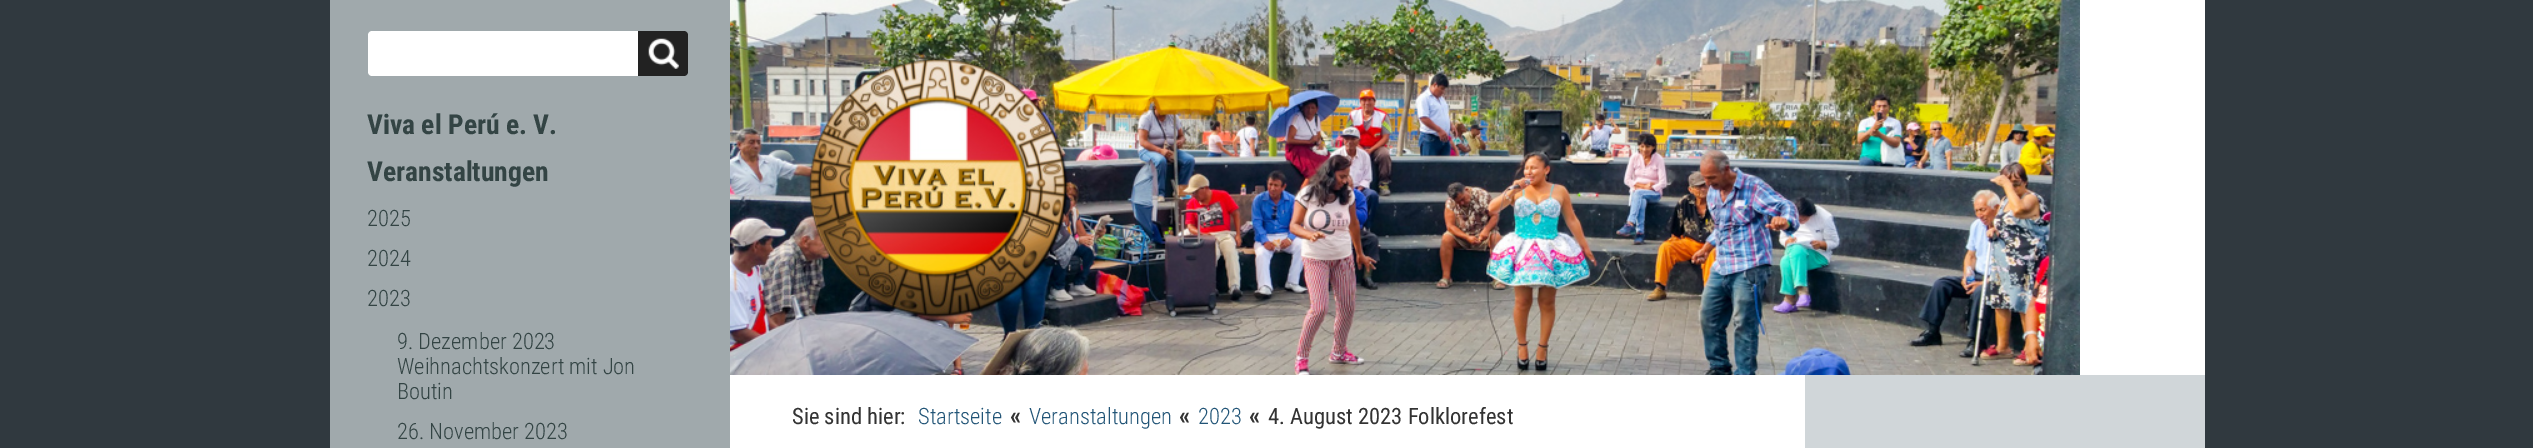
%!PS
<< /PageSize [2533 448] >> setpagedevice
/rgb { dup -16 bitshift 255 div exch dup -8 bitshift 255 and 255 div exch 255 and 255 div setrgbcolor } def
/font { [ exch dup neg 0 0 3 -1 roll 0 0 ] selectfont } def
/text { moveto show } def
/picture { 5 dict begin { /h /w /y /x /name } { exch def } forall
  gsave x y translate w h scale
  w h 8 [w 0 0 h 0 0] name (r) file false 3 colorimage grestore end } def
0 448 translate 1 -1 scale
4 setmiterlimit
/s1 { /RobotoCondensed-Bold 27.5 font 16#334444 rgb } def
/s2 { /RobotoCondensed-Light 22.5 font 16#334444 rgb } def
/s3 { /RobotoCondensed-Regular 22.5 font 16#333333 rgb } def
/s4 { /RobotoCondensed-Light 22.5 font 16#225577 rgb } def
/s5 { /RobotoCondensed-Bold 25 font 16#333333 rgb } def
16#30393F rgb
0 0 2533 448 rectfill
16#FFFFFF rgb
730 0 1475 448 rectfill
16#A0A9AC rgb
330 0 400 448 rectfill
16#FFFFFF rgb
372 31 moveto 638 31 lineto 638 76 lineto 372 76 lineto 370 76 368 74 368 72 curveto 368 35 lineto 368 33 370 31 372 31 curveto closepath fill
16#222222 rgb
638 31 moveto 684 31 lineto 686 31 688 33 688 35 curveto 688 72 lineto 688 74 686 76 684 76 curveto 638 76 lineto closepath fill
(pic1.raw) 648 38 31 31 picture
s1
(Viva el Perú e. V.) 367 134 text
(Veranstaltungen) 367 181 text
s2
(2025) 367 226 text
(2024) 367 266 text
(2023) 367 306 text
(9. Dezember 2023) 397 349 text
(Weihnachtskonzert mit Jon) 397 374 text
(Boutin) 397 399 text
(26. November 2023) 397 439 text
(pic2.raw) 730 0 1350 375 picture
s3
(Sie sind hier:) 792 424 text
s4
(Startseite) 918 424 text
s5
(«) 1010 424 text
s4
(Veranstaltungen) 1029 424 text
s5
(«) 1179 424 text
s4
(2023) 1198 424 text
s5
(«) 1249 424 text
s3
(4. August 2023 Folklorefest) 1268 424 text
16#D0D6D9 rgb
1805 375 400 73 rectfill
showpage
